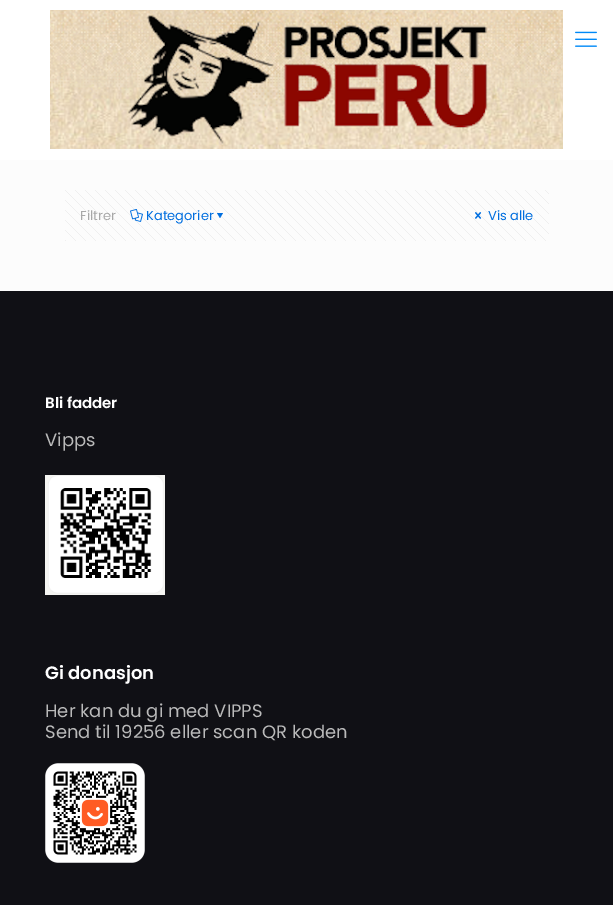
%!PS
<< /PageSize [613 905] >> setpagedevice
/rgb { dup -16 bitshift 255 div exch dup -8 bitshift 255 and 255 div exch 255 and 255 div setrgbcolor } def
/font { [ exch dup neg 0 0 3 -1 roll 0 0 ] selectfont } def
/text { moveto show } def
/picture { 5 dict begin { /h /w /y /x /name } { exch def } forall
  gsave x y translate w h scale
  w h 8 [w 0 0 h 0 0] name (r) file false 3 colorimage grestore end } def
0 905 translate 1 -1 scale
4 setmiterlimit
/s1 { /Poppins-Regular 13 font 16#A8A8A8 rgb } def
/s2 { /Poppins-Regular 13 font 16#006EDF rgb } def
/s3 { /Poppins-SemiBold 15 font 16#FFFFFF rgb } def
/s4 { /Poppins-Regular 18 font 16#BABABA rgb } def
/s5 { /Poppins-SemiBold 18 font 16#FFFFFF rgb } def
16#FCFCFC rgb
0 0 613 905 rectfill
16#FFFFFF rgb
0 0 613 160 rectfill
(pic1.raw) 50 10 513 139 picture
(pic2.raw) 575 31 22 16 picture
(pic3.raw) 65 190 484 51 picture
s1
(Filtrer) 80 220 text
(pic4.raw) 130 209 13 13 picture
s2
(Kategorier) 146 220 text
223 213 moveto 220 218 lineto 217 213 lineto closepath fill
(pic5.raw) 475 212 7 7 picture
(Vis alle) 488 220 text
16#101015 rgb
0 291 613 614 rectfill
s3
(Bli fadder) 45 408 text
s4
(Vipps) 45 446 text
(pic6.raw) 45 475 120 120 picture
s5
(Gi donasjon) 45 679 text
s4
(Her kan du gi med VIPPS) 45 717 text
(Send til 19256 eller scan QR koden) 45 738 text
(pic7.raw) 45 763 100 100 picture
showpage
